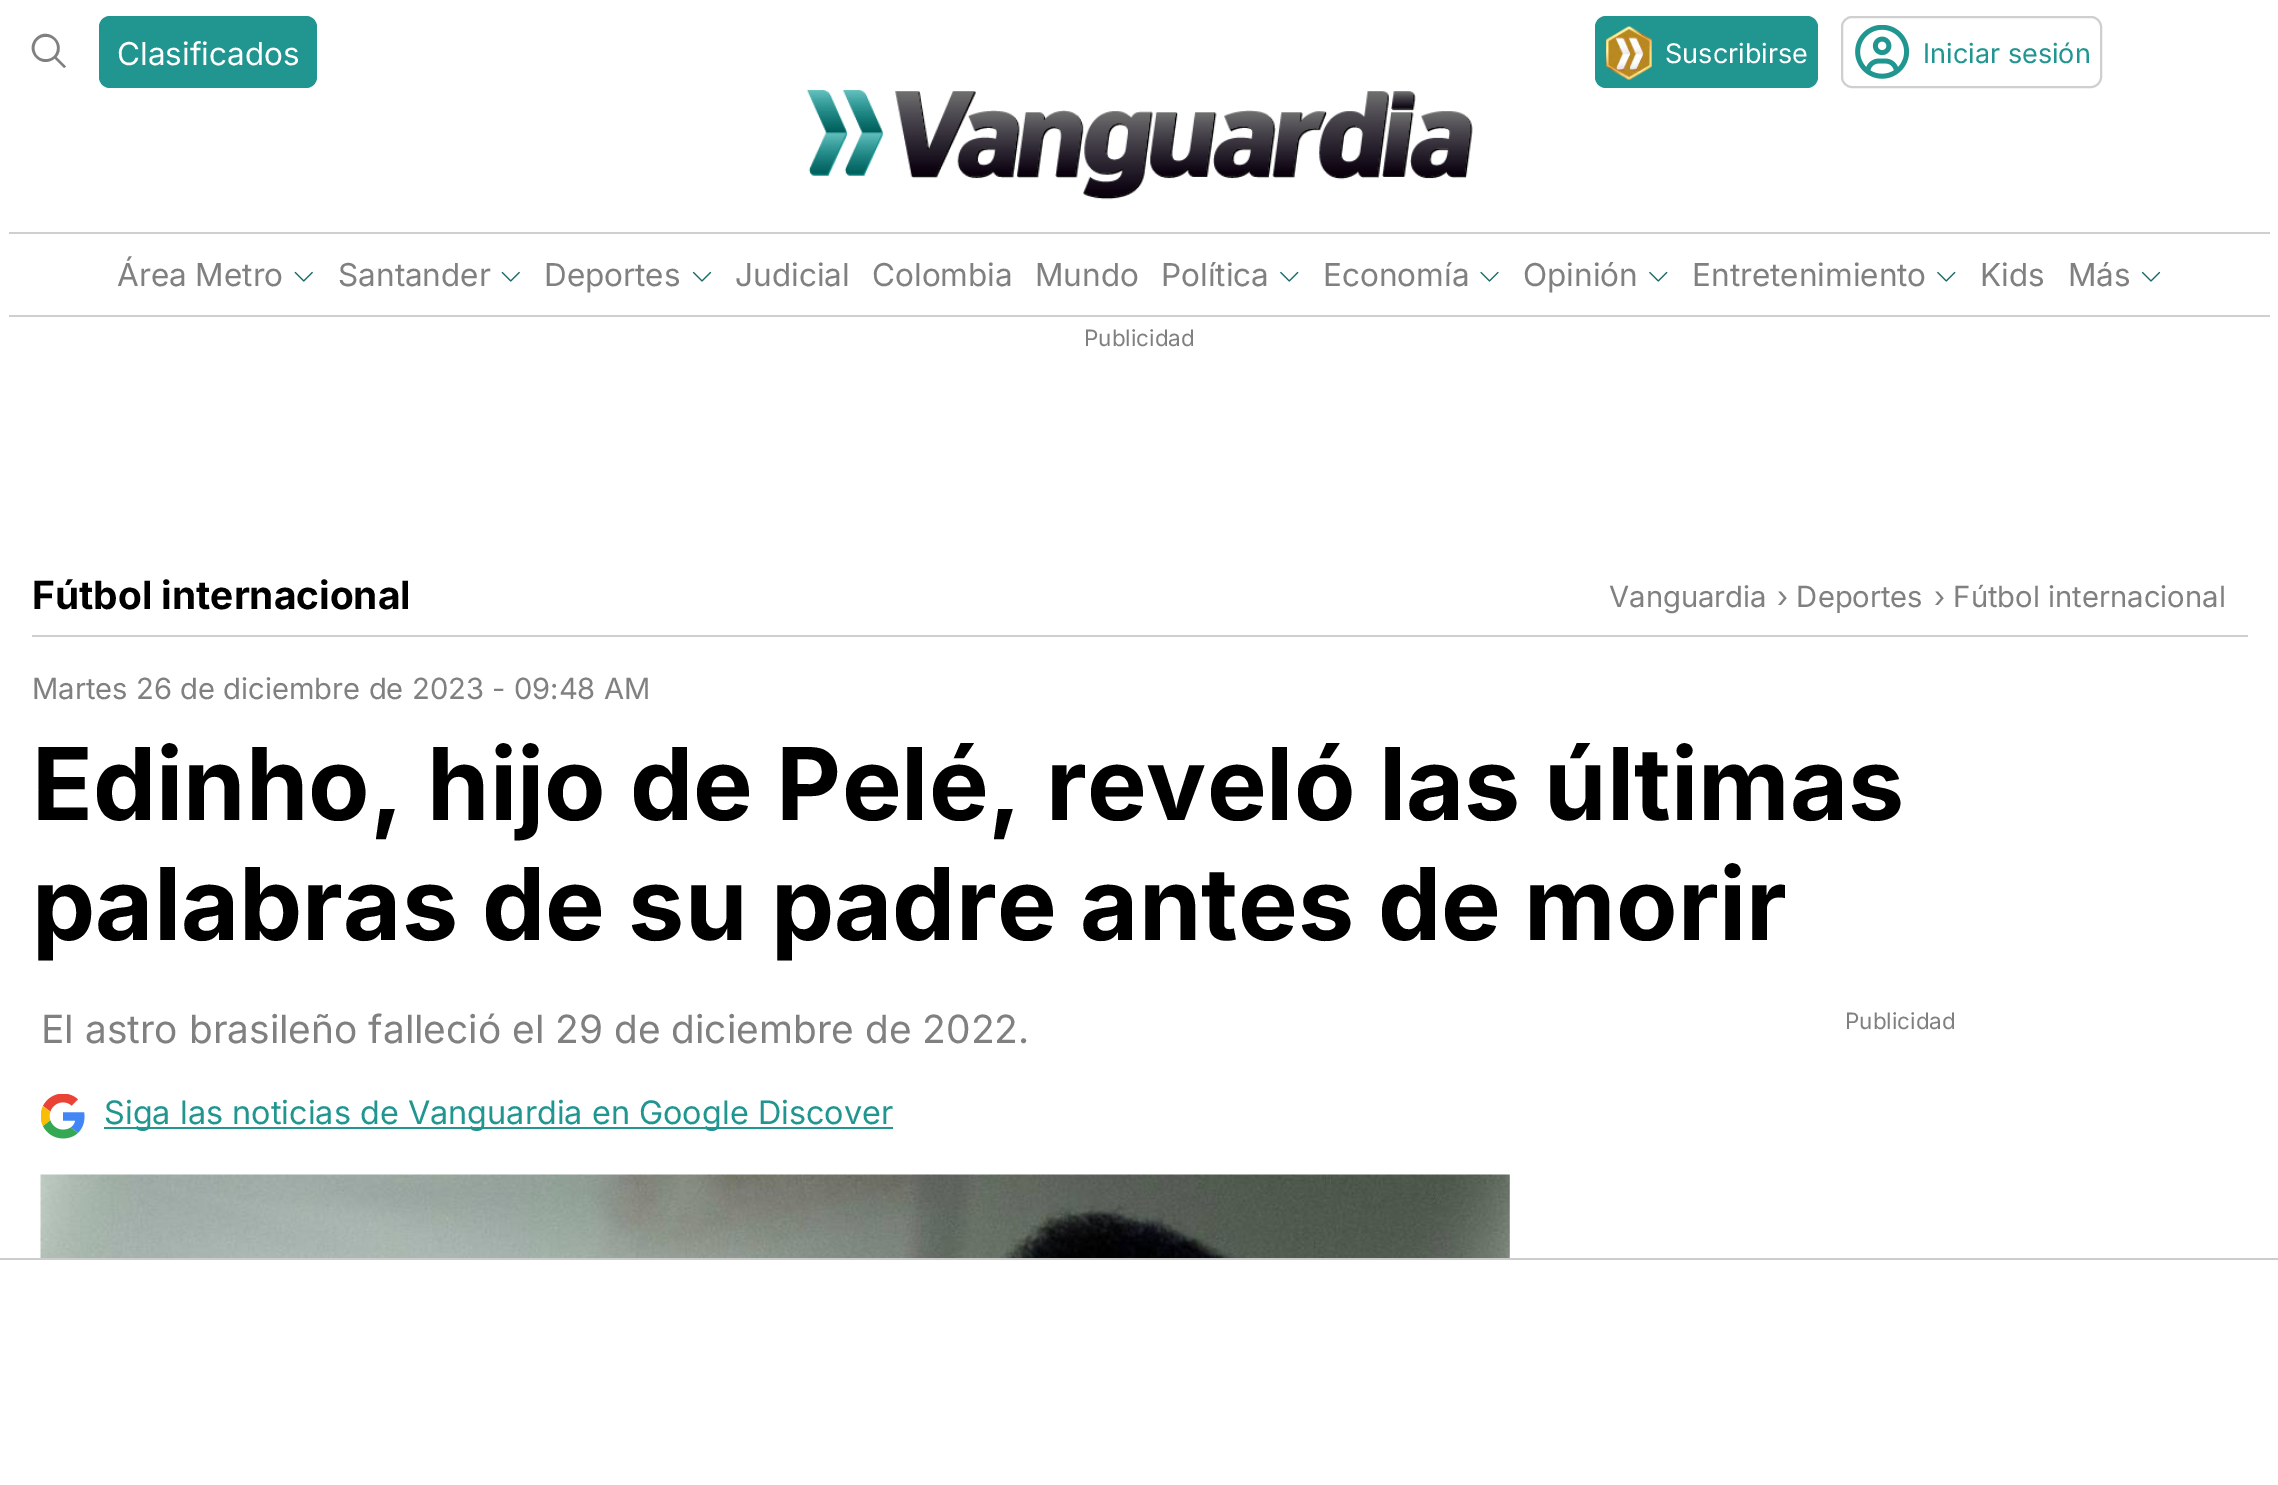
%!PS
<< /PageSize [2278 1485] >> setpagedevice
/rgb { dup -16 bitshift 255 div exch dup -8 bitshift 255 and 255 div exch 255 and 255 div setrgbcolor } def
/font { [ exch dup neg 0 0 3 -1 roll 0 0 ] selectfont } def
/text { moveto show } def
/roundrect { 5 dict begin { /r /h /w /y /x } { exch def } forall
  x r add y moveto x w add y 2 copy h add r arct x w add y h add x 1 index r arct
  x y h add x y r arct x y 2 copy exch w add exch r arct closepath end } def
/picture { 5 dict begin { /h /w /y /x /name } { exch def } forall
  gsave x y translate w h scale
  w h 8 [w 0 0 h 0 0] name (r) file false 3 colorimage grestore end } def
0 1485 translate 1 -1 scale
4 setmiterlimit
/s1 { /Inter-Regular 31.5 font 16#FFFFFF rgb } def
/s2 { /Inter-Regular 27 font 16#FFFFFF rgb } def
/s3 { /Inter-Regular 27 font 16#219590 rgb } def
/s4 { /Inter-Regular 31.5 font 16#808080 rgb } def
/s5 { /Inter-Regular 22.5 font 16#808080 rgb } def
/s6 { /Inter-Bold 38.9 font 16#000000 rgb } def
/s7 { /Inter-Regular 29.2 font 16#808080 rgb } def
/s8 { /Inter-Bold 100.4 font 16#000000 rgb } def
/s9 { /Inter-Regular 38.9 font 16#808080 rgb } def
/s10 { /Inter-Regular 32.4 font 16#219590 rgb } def
16#FFFFFF rgb
0 0 2278 1485 rectfill
16#CFCFCF rgb
9 315 2261 2 rectfill
16#808080 rgb
66 66.5 moveto 56.5 57 lineto 67.5 43.5 48 25.5 36 38 curveto 23.5 50.5 41 70 54.5 58.5 curveto 64 68 lineto closepath 34.5 48 moveto 34.5 33 57 33 57 48 curveto 57 63 34.5 63 34.5 48 curveto fill
16#219590 rgb
99 16 218 72 11 roundrect fill
s1
(Clasificados) 117 65 text
16#219590 rgb
1595 16 223 72 11 roundrect fill
(pic1.raw) 1606 26 46 55 picture
s2
(Suscribirse) 1665 63 text
16#CFCFCF rgb
2 setlinewidth
1842 17 259 70 10 roundrect stroke
(pic2.raw) 1855 25 55 54 picture
s3
(Iniciar sesión) 1923 63 text
(pic3.raw) 806 89 667 111 picture
16#CFCFCF rgb
9 232 2261 2 rectfill
s4
(Área Metro) 117 286 text
(pic4.raw) 294 271 19 11 picture
(Santander) 338 286 text
(pic4.raw) 501 271 19 11 picture
(Deportes) 544 286 text
(pic5.raw) 692 271 20 11 picture
(Judicial) 735 286 text
(Colombia) 872 286 text
(Mundo) 1035 286 text
(Política) 1161 286 text
(pic6.raw) 1280 271 19 11 picture
(Economía) 1323 286 text
(pic7.raw) 1480 271 19 11 picture
(Opinión) 1523 286 text
(pic6.raw) 1649 271 19 11 picture
(Entretenimiento) 1692 286 text
(pic6.raw) 1937 271 19 11 picture
(Kids) 1980 286 text
(Más) 2068 286 text
(pic5.raw) 2141 271 20 11 picture
s5
(Publicidad) 1084 346 text
16#CFCFCF rgb
32 635 2216 2 rectfill
s6
(Fútbol internacional) 32 609 text
s7
(Vanguardia) 1609 607 text
(› Deportes) 1777 607 text
(› Fútbol internacional) 1934 607 text
(Martes 26 de diciembre de 2023 - 09:48 AM) 32 699 text
s8
(Edinho, hijo de Pelé, reveló las últimas) 32 820 text
(palabras de su padre antes de morir) 32 940 text
s9
(El astro brasileño falleció el 29 de diciembre de 2022.) 41 1043 text
(pic8.raw) 41 1094 44 45 picture
16#219590 rgb
104 1127 789 2 rectfill
s10
(Siga las noticias de Vanguardia en Google Discover) 104 1124 text
(pic9.raw) 40 1174 1470 84 picture
s5
(Publicidad) 1845 1029 text
16#CCCCCC rgb
0 1258 2278 2 rectfill
showpage
